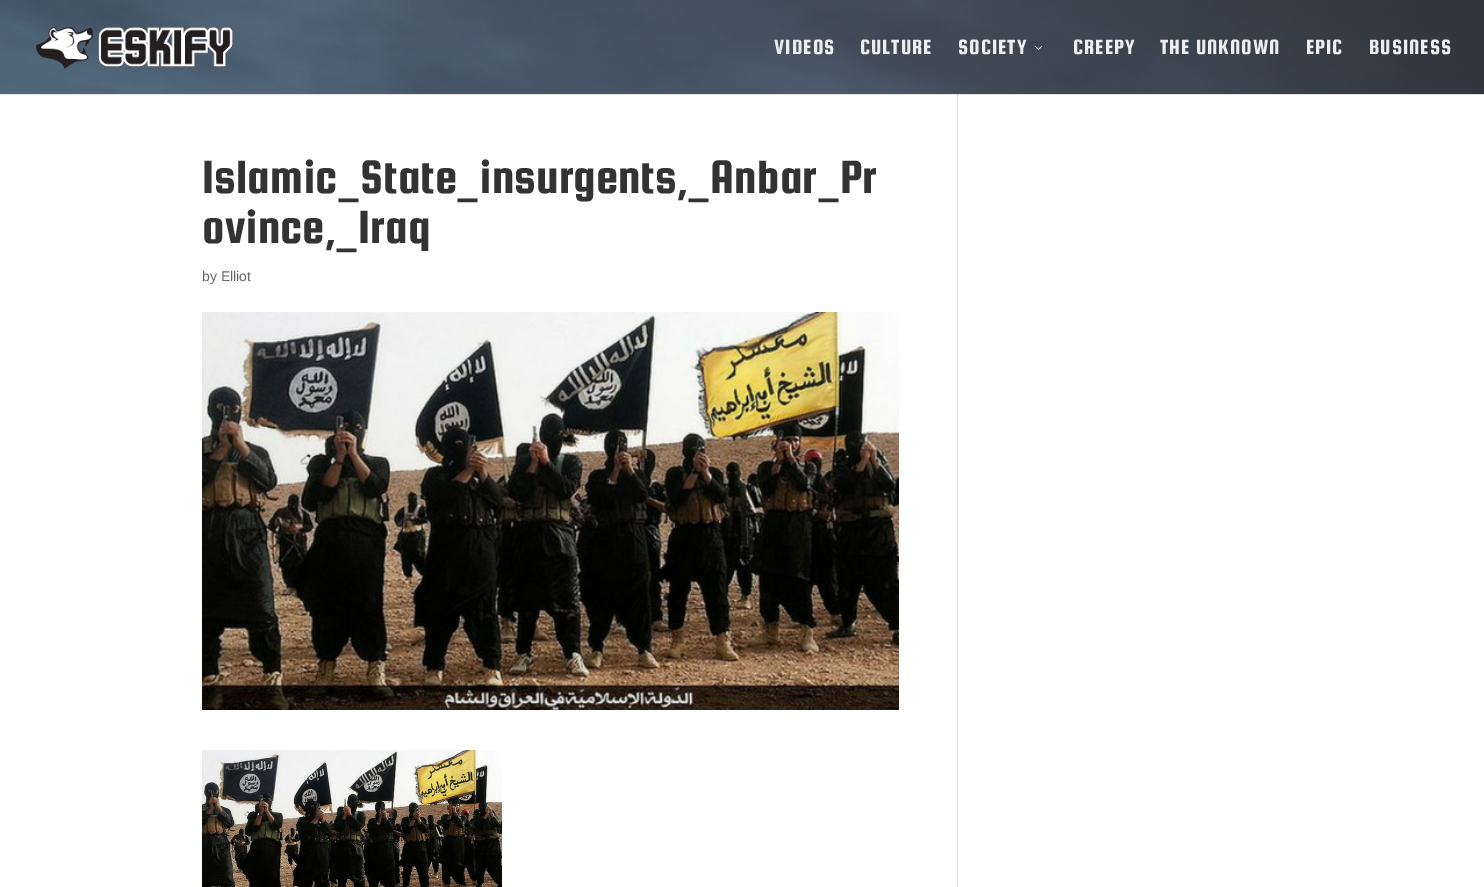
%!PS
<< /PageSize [1484 887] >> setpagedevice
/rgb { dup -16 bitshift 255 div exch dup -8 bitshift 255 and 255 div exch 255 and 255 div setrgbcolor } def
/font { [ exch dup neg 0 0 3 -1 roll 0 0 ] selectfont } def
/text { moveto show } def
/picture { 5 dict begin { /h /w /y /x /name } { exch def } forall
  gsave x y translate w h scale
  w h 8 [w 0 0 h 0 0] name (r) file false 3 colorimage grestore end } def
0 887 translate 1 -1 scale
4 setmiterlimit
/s1 { /SquadaOne-Regular 50 font 16#333333 rgb } def
/s2 { /LiberationSans-Regular 14 font 16#666666 rgb } def
16#FFFFFF rgb
0 0 1484 887 rectfill
16#E6E6E6 rgb
0 94 1484 1 rectfill
16#5B5B5B rgb
0 0 1484 94 rectfill
(pic1.raw) 0 0 1484 94 picture
(pic2.raw) 36 27 197 42 picture
/SquadaOne-Regular 22 font
16#ECEEEF rgb
774 54 moveto 1 0 (VIDEOS) ashow
860 54 moveto 1 0 (CULTURE) ashow
958 54 moveto 1 0 (SOCIETY) ashow
(pic3.raw) 1034 45 9 5 picture
1073 54 moveto 1 0 (CREEPY) ashow
1160 54 moveto 1 0 (THE UNKNOWN) ashow
1306 54 moveto 1 0 (EPIC) ashow
1369 54 moveto 1 0 (BUSINESS) ashow
s1
(Islamic_State_insurgents,_Anbar_Pr) 202 193 text
(ovince,_Iraq) 202 243 text
s2
(by Elliot) 202 281 text
(pic4.raw) 202 312 697 398 picture
(pic5.raw) 202 750 300 137 picture
16#E2E2E2 rgb
957 94 1 793 rectfill
16#CBCBCB rgb
957 94 1 1 rectfill
showpage
